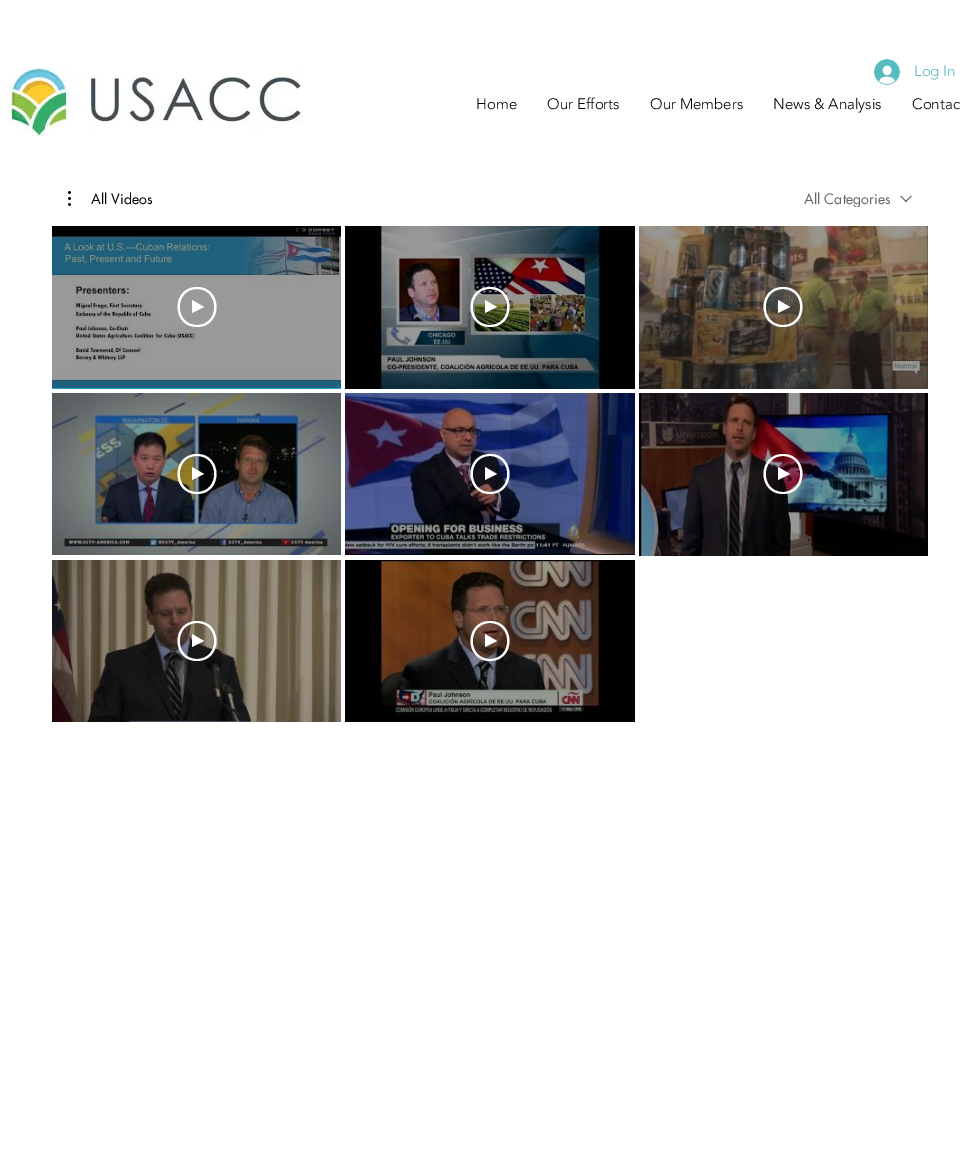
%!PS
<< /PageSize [962 1167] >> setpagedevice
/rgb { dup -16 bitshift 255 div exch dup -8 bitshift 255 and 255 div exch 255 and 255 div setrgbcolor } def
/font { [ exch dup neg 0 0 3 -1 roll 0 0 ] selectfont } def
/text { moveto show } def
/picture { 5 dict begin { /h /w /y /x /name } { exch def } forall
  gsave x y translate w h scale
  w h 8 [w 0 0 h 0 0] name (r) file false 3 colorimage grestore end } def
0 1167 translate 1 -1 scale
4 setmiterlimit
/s1 { /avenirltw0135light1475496-Light 15 font 16#57BBBF rgb } def
/s2 { /avenirltw0135light1475496-Light 15 font 16#000000 rgb } def
/s3 { /futura-Regular 14 font 16#000000 rgb } def
/s4 { /futura-Regular 14 font 16#666666 rgb } def
16#FFFFFF rgb
0 0 962 1167 rectfill
(pic1.raw) 7 66 296 70 picture
(pic2.raw) 874 59 26 26 picture
s1
(Log In) 914 76 text
s2
(Home) 476 109 text
(Our Efforts) 547 109 text
(Our Members) 650 109 text
(News & Analysis) 773 109 text
(Contac) 912 109 text
(pic3.raw) 68 191 3 15 picture
s3
(All Videos) 91 204 text
gsave
804 190 86 17 rectclip
s4
(All Categories) 804 204 text
grestore
(pic4.raw) 900 195 12 8 picture
(pic5.raw) 52 388 289 1 picture
(pic6.raw) 52 226 289 162 picture
16#FFFFFF rgb
197 325 moveto 220 325 220 289 197 289 curveto 174 289 174 325 197 325 curveto closepath 197 327 moveto 171 327 171 287 197 287 curveto 223 287 223 327 197 327 curveto closepath 204 307 moveto 192 300 lineto 192 313 lineto closepath fill
(pic7.raw) 345 226 290 163 picture
(pic8.raw) 381 226 219 163 picture
490 325 moveto 513 325 513 289 490 289 curveto 467 289 467 325 490 325 curveto closepath 490 327 moveto 464 327 464 287 490 287 curveto 516 287 516 327 490 327 curveto closepath 497 307 moveto 485 300 lineto 485 313 lineto closepath fill
(pic9.raw) 639 226 289 163 picture
783 325 moveto 806 325 806 289 783 289 curveto 760 289 760 325 783 325 curveto closepath 783 327 moveto 757 327 757 287 783 287 curveto 809 287 809 327 783 327 curveto closepath 790 307 moveto 778 300 lineto 778 313 lineto closepath fill
(pic10.raw) 52 393 289 162 picture
197 492 moveto 220 492 220 456 197 456 curveto 174 456 174 492 197 492 curveto closepath 197 494 moveto 171 494 171 454 197 454 curveto 223 454 223 494 197 494 curveto closepath 204 474 moveto 192 467 lineto 192 480 lineto closepath fill
(pic11.raw) 345 393 290 162 picture
490 492 moveto 513 492 513 456 490 456 curveto 467 456 467 492 490 492 curveto closepath 490 494 moveto 464 494 464 454 490 454 curveto 516 454 516 494 490 494 curveto closepath 497 474 moveto 485 467 lineto 485 480 lineto closepath fill
(pic12.raw) 926 393 2 163 picture
(pic13.raw) 639 393 287 163 picture
783 492 moveto 806 492 806 456 783 456 curveto 760 456 760 492 783 492 curveto closepath 783 494 moveto 757 494 757 454 783 454 curveto 809 454 809 494 783 494 curveto closepath 790 474 moveto 778 467 lineto 778 480 lineto closepath fill
(pic14.raw) 52 560 289 162 picture
197 659 moveto 220 659 220 623 197 623 curveto 174 623 174 659 197 659 curveto closepath 197 661 moveto 171 661 171 621 197 621 curveto 223 621 223 661 197 661 curveto closepath 204 641 moveto 192 634 lineto 192 647 lineto closepath fill
(pic15.raw) 345 560 290 162 picture
(pic16.raw) 380 560 219 156 picture
490 659 moveto 513 659 513 623 490 623 curveto 467 623 467 659 490 659 curveto closepath 490 661 moveto 464 661 464 621 490 621 curveto 516 621 516 661 490 661 curveto closepath 497 641 moveto 485 634 lineto 485 647 lineto closepath fill
showpage
